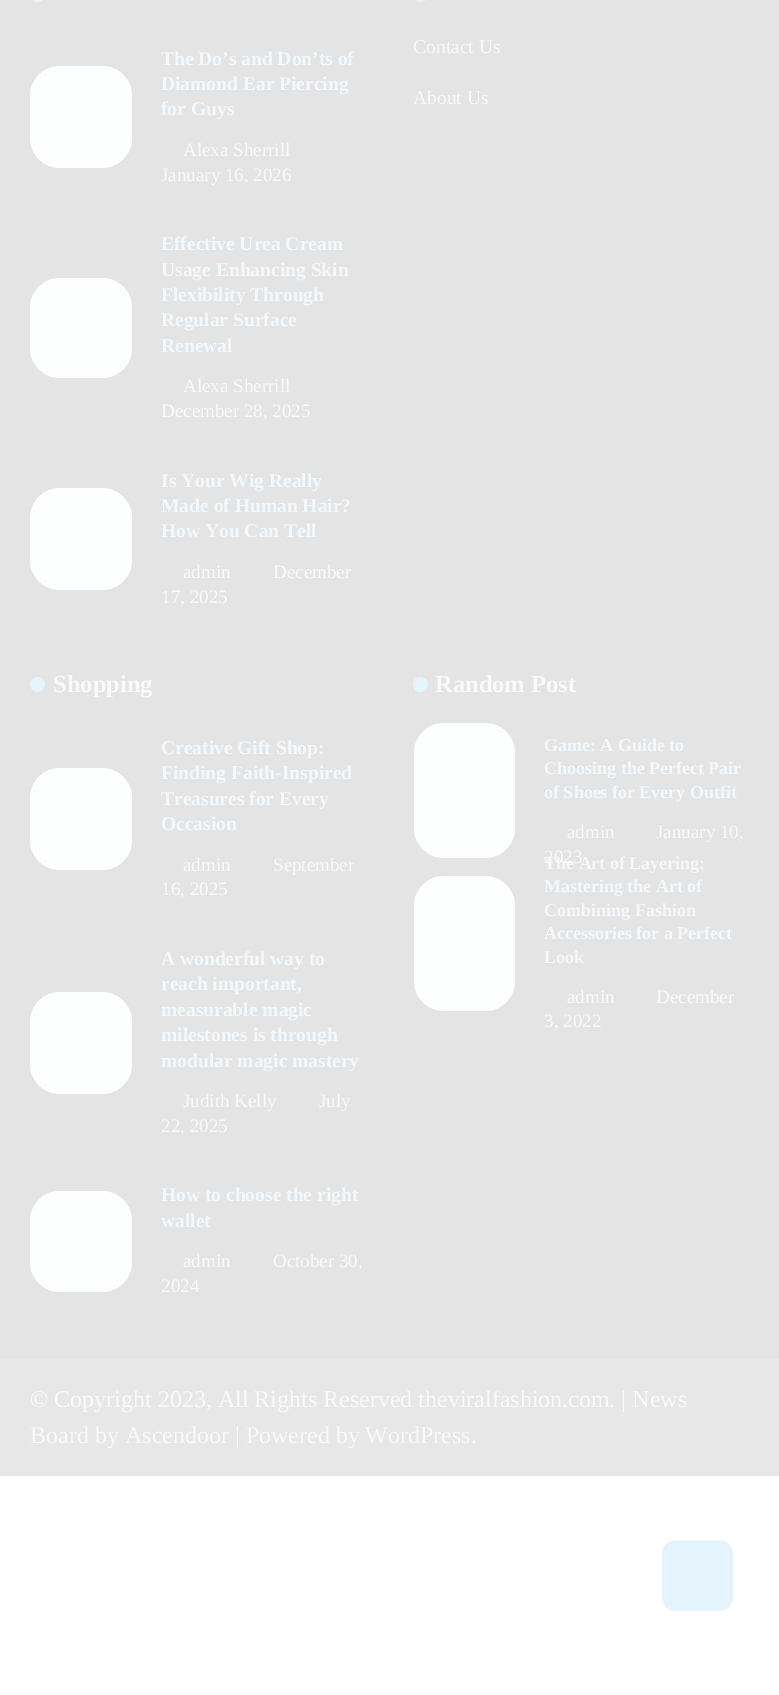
%!PS
<< /PageSize [779 1695] >> setpagedevice
/rgb { dup -16 bitshift 255 div exch dup -8 bitshift 255 and 255 div exch 255 and 255 div setrgbcolor } def
/font { [ exch dup neg 0 0 3 -1 roll 0 0 ] selectfont } def
/text { moveto show } def
/circle { newpath 0 360 arc closepath } def
/roundrect { 5 dict begin { /r /h /w /y /x } { exch def } forall
  x r add y moveto x w add y 2 copy h add r arct x w add y h add x 1 index r arct
  x y h add x y r arct x y 2 copy exch w add exch r arct closepath end } def
0 1695 translate 1 -1 scale
4 setmiterlimit
/s1 { /LiberationSerif-Bold 19.5 font 16#F2F9FE rgb } def
/s2 { /LiberationSerif-Regular 19 font 16#FAFAFA rgb } def
/s3 { /LiberationSerif-Regular 19.5 font 16#FAFAFA rgb } def
/s4 { /LiberationSerif-Bold 24.5 font 16#FAFAFA rgb } def
/s5 { /LiberationSerif-Bold 18 font 16#F2F9FE rgb } def
/s6 { /LiberationSerif-Regular 24 font 16#FAFAFA rgb } def
16#FFFFFF rgb
0 0 779 1695 rectfill
16#E4E4E4 rgb
0 0 779 1359 rectfill
16#E5F3FD rgb
30 -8 15 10 7.5 roundrect fill
16#FDFEFE rgb
30 66 102 102 30 roundrect fill
s1
(The Do’s and Don’ts of) 161 65 text
(Diamond Ear Piercing) 161 90 text
(for Guys) 161 115 text
s2
(Alexa Sherrill) 183 156 text
(January 16, 2026) 161 181 text
16#FDFEFE rgb
30 278 102 100 30 roundrect fill
s1
(Effective Urea Cream) 161 250 text
(Usage Enhancing Skin) 161 276 text
(Flexibility Through) 161 301 text
(Regular Surface) 161 326 text
(Renewal) 161 352 text
s2
(Alexa Sherrill) 183 392 text
(December 28, 2025) 161 417 text
16#FDFEFE rgb
30 488 102 102 30 roundrect fill
s1
(Is Your Wig Really) 161 487 text
(Made of Human Hair?) 161 512 text
(How You Can Tell) 161 537 text
s2
(admin) 183 578 text
(December) 273 578 text
(17, 2025) 161 603 text
16#E5F3FD rgb
413 -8 15 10 7.5 roundrect fill
s3
(Contact Us) 413 53 text
(About Us) 413 104 text
16#E5F3FD rgb
37.5 684.5 7.5 circle fill
s4
(Shopping) 53 692 text
16#FDFEFE rgb
30 768 102 102 30 roundrect fill
s1
(Creative Gift Shop:) 161 754 text
(Finding Faith-Inspired) 161 779 text
(Treasures for Every) 161 805 text
(Occasion) 161 830 text
s2
(admin) 183 871 text
(September) 273 871 text
(16, 2025) 161 895 text
16#FDFEFE rgb
30 992 102 102 30 roundrect fill
s1
(A wonderful way to) 161 965 text
(reach important,) 161 990 text
(measurable magic) 161 1016 text
(milestones is through) 161 1041 text
(modular magic mastery) 161 1067 text
s2
(Judith Kelly) 183 1107 text
(July) 319 1107 text
(22, 2025) 161 1132 text
16#FDFEFE rgb
30 1191 102 101 30 roundrect fill
s1
(How to choose the right) 161 1201 text
(wallet) 161 1227 text
s2
(admin) 183 1267 text
(October 30,) 273 1267 text
(2024) 161 1292 text
16#E5F3FD rgb
420.5 684.5 7.5 circle fill
s4
(Random Post) 435 692 text
16#FDFEFE rgb
414 723 101 135 30 roundrect fill
s5
(Game: A Guide to) 544 751 text
(Choosing the Perfect Pair) 544 774 text
(of Shoes for Every Outfit) 544 798 text
s2
(admin) 567 838 text
(January 10,) 656 838 text
s5
(The Art of Layering:) 544 869 text
s2
(2023) 544 863 text
16#FDFEFE rgb
414 876 101 135 30 roundrect fill
s5
(Mastering the Art of) 544 892 text
(Combining Fashion) 544 916 text
(Accessories for a Perfect) 544 939 text
(Look) 544 963 text
s2
(admin) 567 1003 text
(December) 656 1003 text
(3, 2022) 544 1027 text
16#E7E7E7 rgb
0 1359 779 117 rectfill
s6
(© Copyright 2023, All Rights Reserved theviralfashion.com. | News) 30 1407 text
(Board by) 30 1443 text
(Ascendoor) 125 1443 text
(| Powered by) 235 1443 text
(WordPress) 365 1443 text
(.) 471 1443 text
16#E5F3FD rgb
661 1539 73 73 14 roundrect gsave fill grestore
16#FFFFFF rgb
2 setlinewidth
stroke
showpage
